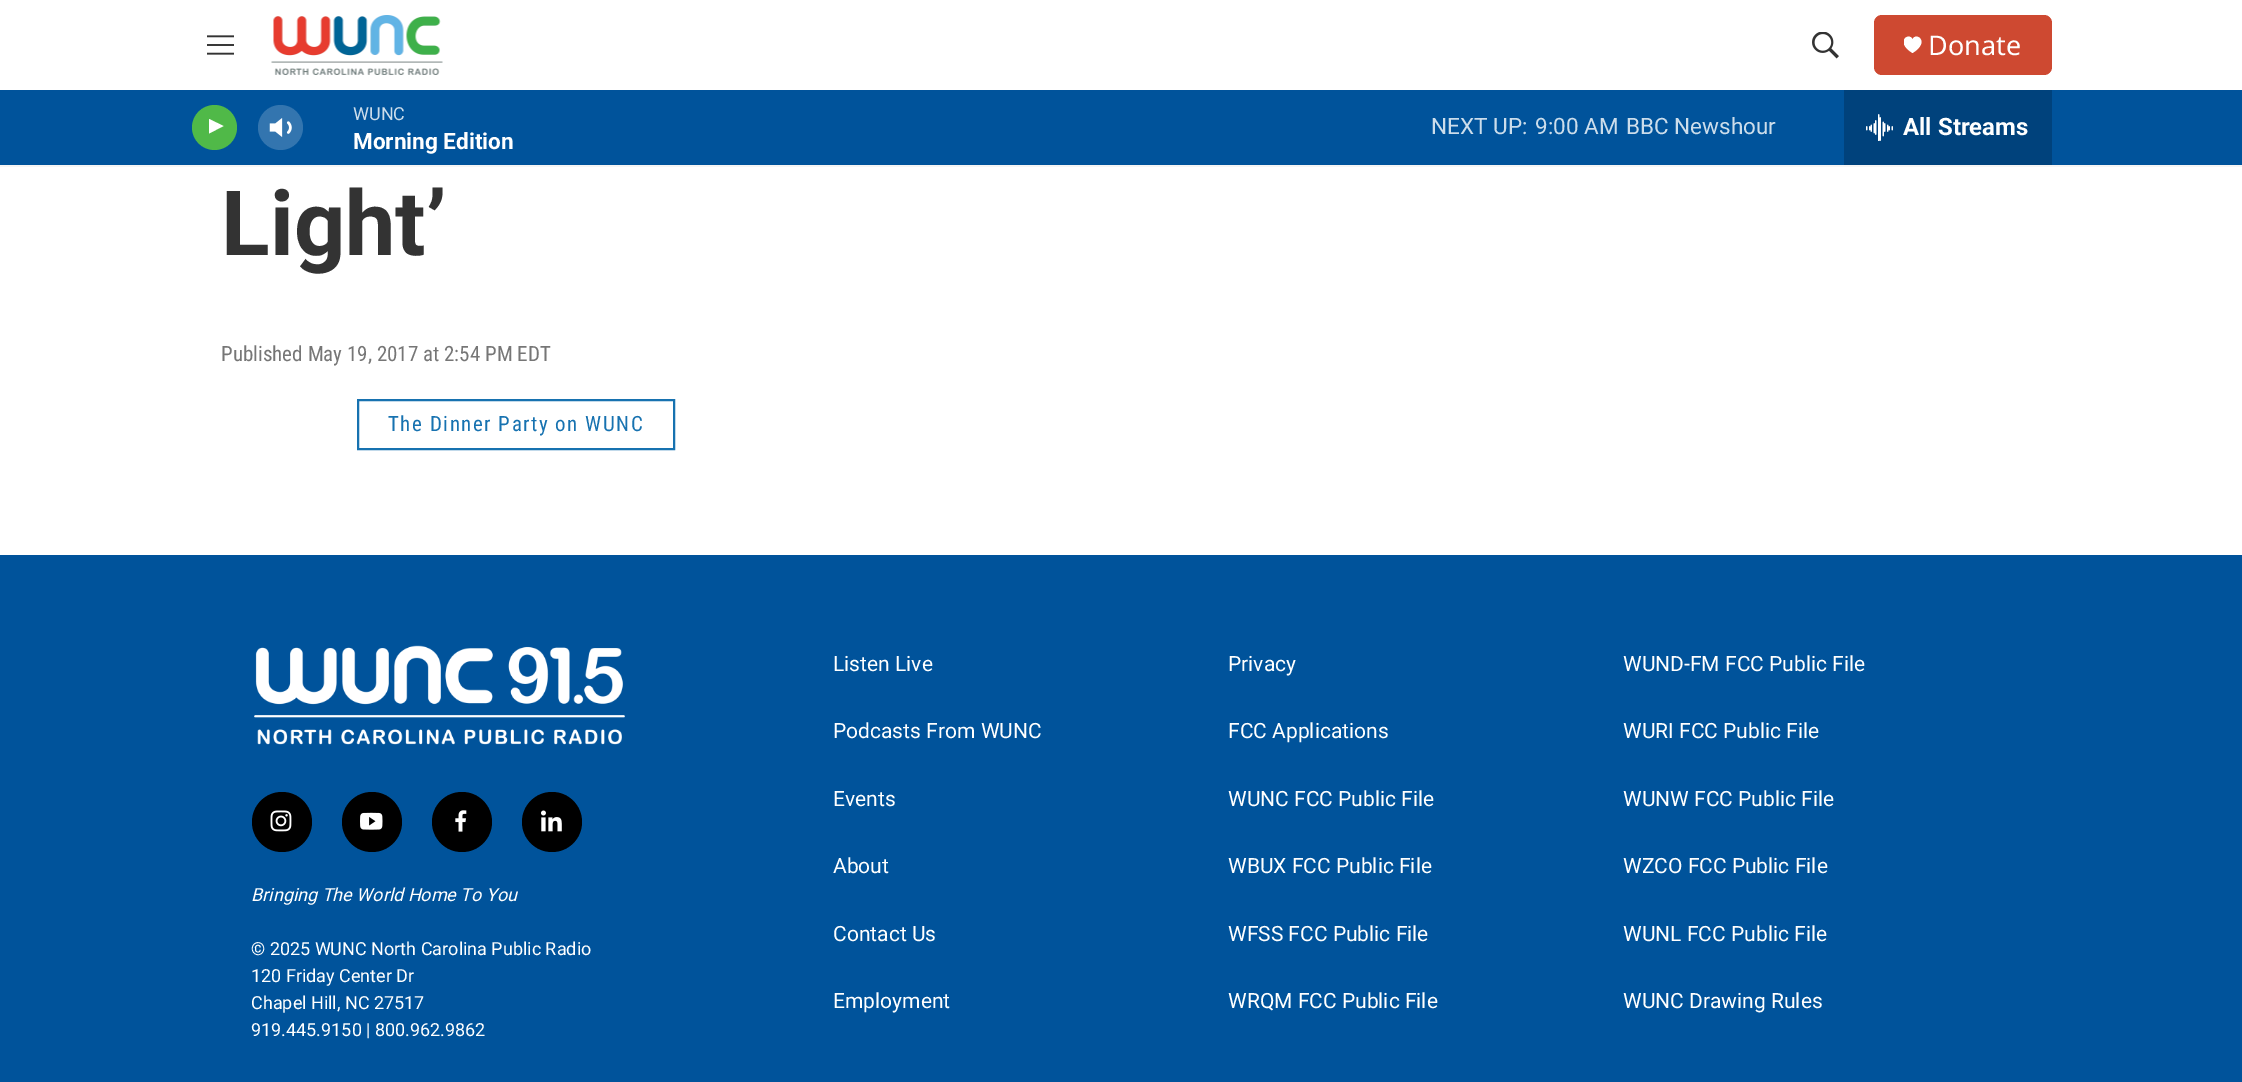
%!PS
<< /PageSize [2242 1082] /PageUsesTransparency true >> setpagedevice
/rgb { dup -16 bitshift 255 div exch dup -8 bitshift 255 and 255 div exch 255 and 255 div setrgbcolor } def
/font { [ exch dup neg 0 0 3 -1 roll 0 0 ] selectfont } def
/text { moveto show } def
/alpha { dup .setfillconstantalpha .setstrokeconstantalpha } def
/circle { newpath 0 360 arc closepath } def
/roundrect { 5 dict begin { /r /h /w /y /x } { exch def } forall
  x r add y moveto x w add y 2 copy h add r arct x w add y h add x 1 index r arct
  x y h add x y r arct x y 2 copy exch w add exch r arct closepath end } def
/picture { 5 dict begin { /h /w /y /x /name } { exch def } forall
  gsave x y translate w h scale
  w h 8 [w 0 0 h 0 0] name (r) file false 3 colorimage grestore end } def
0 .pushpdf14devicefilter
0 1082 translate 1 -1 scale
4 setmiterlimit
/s1 { /NotoSans-Regular 27 font 16#FFFFFF rgb } def
/s2 { /Roboto-Regular 18 font 16#CCDDEB rgb } def
/s3 { /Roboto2-Bold 22.5 font 16#FFFFFF rgb } def
/s4 { /Roboto-Regular 22.5 font 16#CCDDEB rgb } def
/s5 { /Roboto2-Bold 24 font 16#FFFFFF rgb } def
/s6 { /Roboto-Bold 90 font 16#333333 rgb } def
/s7 { /RobotoCondensed-Regular 21 font 16#767676 rgb } def
/s8 { /Roboto-Italic 18 font 16#FFFFFF rgb } def
/s9 { /Roboto-Regular 18 font 16#FFFFFF rgb } def
/s10 { /Roboto-Regular 21 font 16#FFFFFF rgb } def
16#FFFFFF rgb
0 0 2242 1082 rectfill
16#F5F5F5 rgb
0 165 2242 2 rectfill
(pic1.raw) 207 35 27 20 picture
(pic2.raw) 271 15 172 60 picture
(pic3.raw) 1812 32 27 27 picture
16#CE4931 rgb
1874 15 178 60 8 roundrect fill
gsave
1904 36 18 18 rectclip
16#FFFFFF rgb
1912.5 39.5 moveto 1909.5 31.5 1894 41.5 1912.5 53 curveto 1931 41.5 1915.5 31.5 1912.5 39.5 curveto closepath fill
grestore
s1
(Donate) 1928 55 text
16#00539B rgb
0 90 2242 75 rectfill
16#50B948 rgb
214.5 127.5 22.5 circle fill
16#FFFFFF rgb
209 119 moveto 223.5 126 lineto 209 133.5 lineto closepath fill
(pic4.raw) 269 118 23 19 picture
0.2 alpha
280.5 127.5 22.5 circle fill
1 alpha
s2
(WUNC) 353 120 text
s3
(Morning Edition) 353 149 text
s4
(NEXT UP:) 1431 134 text
(9:00 AM) 1535 134 text
(BBC Newshour) 1626 134 text
16#00427C rgb
1844 90 208 75 rectfill
(pic5.raw) 1866 114 27 27 picture
s5
(All Streams) 1903 135 text
s6
(Light’) 221 255 text
s7
(Published May 19, 2017 at 2:54 PM EDT) 221 361 text
16#1772B0 rgb
2 setlinewidth
358 400 316 49 rectstroke
388 431 moveto 1.5 0 (The Dinner Party on WUNC) ashow
16#00539B rgb
0 555 2242 527 rectfill
(pic6.raw) 254 645 371 100 picture
16#000000 rgb
282 822 30 circle fill
(pic7.raw) 270 810 22 22 picture
372 822 30 circle fill
(pic8.raw) 360 812 23 18 picture
462 822 30 circle fill
(pic9.raw) 455 810 12 22 picture
552 822 30 circle fill
(pic10.raw) 541 810 21 22 picture
s8
(Bringing The World Home To You) 251 901 text
s9
(© 2025 WUNC North Carolina Public Radio) 251 955 text
(120 Friday Center Dr) 251 982 text
(Chapel Hill, NC 27517) 251 1009 text
(919.445.9150 | 800.962.9862) 251 1036 text
s10
(Listen Live) 833 671 text
(Privacy) 1228 671 text
(WUND-FM FCC Public File) 1623 671 text
(Podcasts From WUNC) 833 738 text
(FCC Applications) 1228 738 text
(WURI FCC Public File) 1623 738 text
(Events) 833 806 text
(WUNC FCC Public File) 1228 806 text
(WUNW FCC Public File) 1623 806 text
(About) 833 873 text
(WBUX FCC Public File) 1228 873 text
(WZCO FCC Public File) 1623 873 text
(Contact Us) 833 941 text
(WFSS FCC Public File) 1228 941 text
(WUNL FCC Public File) 1623 941 text
(Employment) 833 1008 text
(WRQM FCC Public File) 1228 1008 text
(WUNC Drawing Rules) 1623 1008 text
.poppdf14devicefilter showpage
